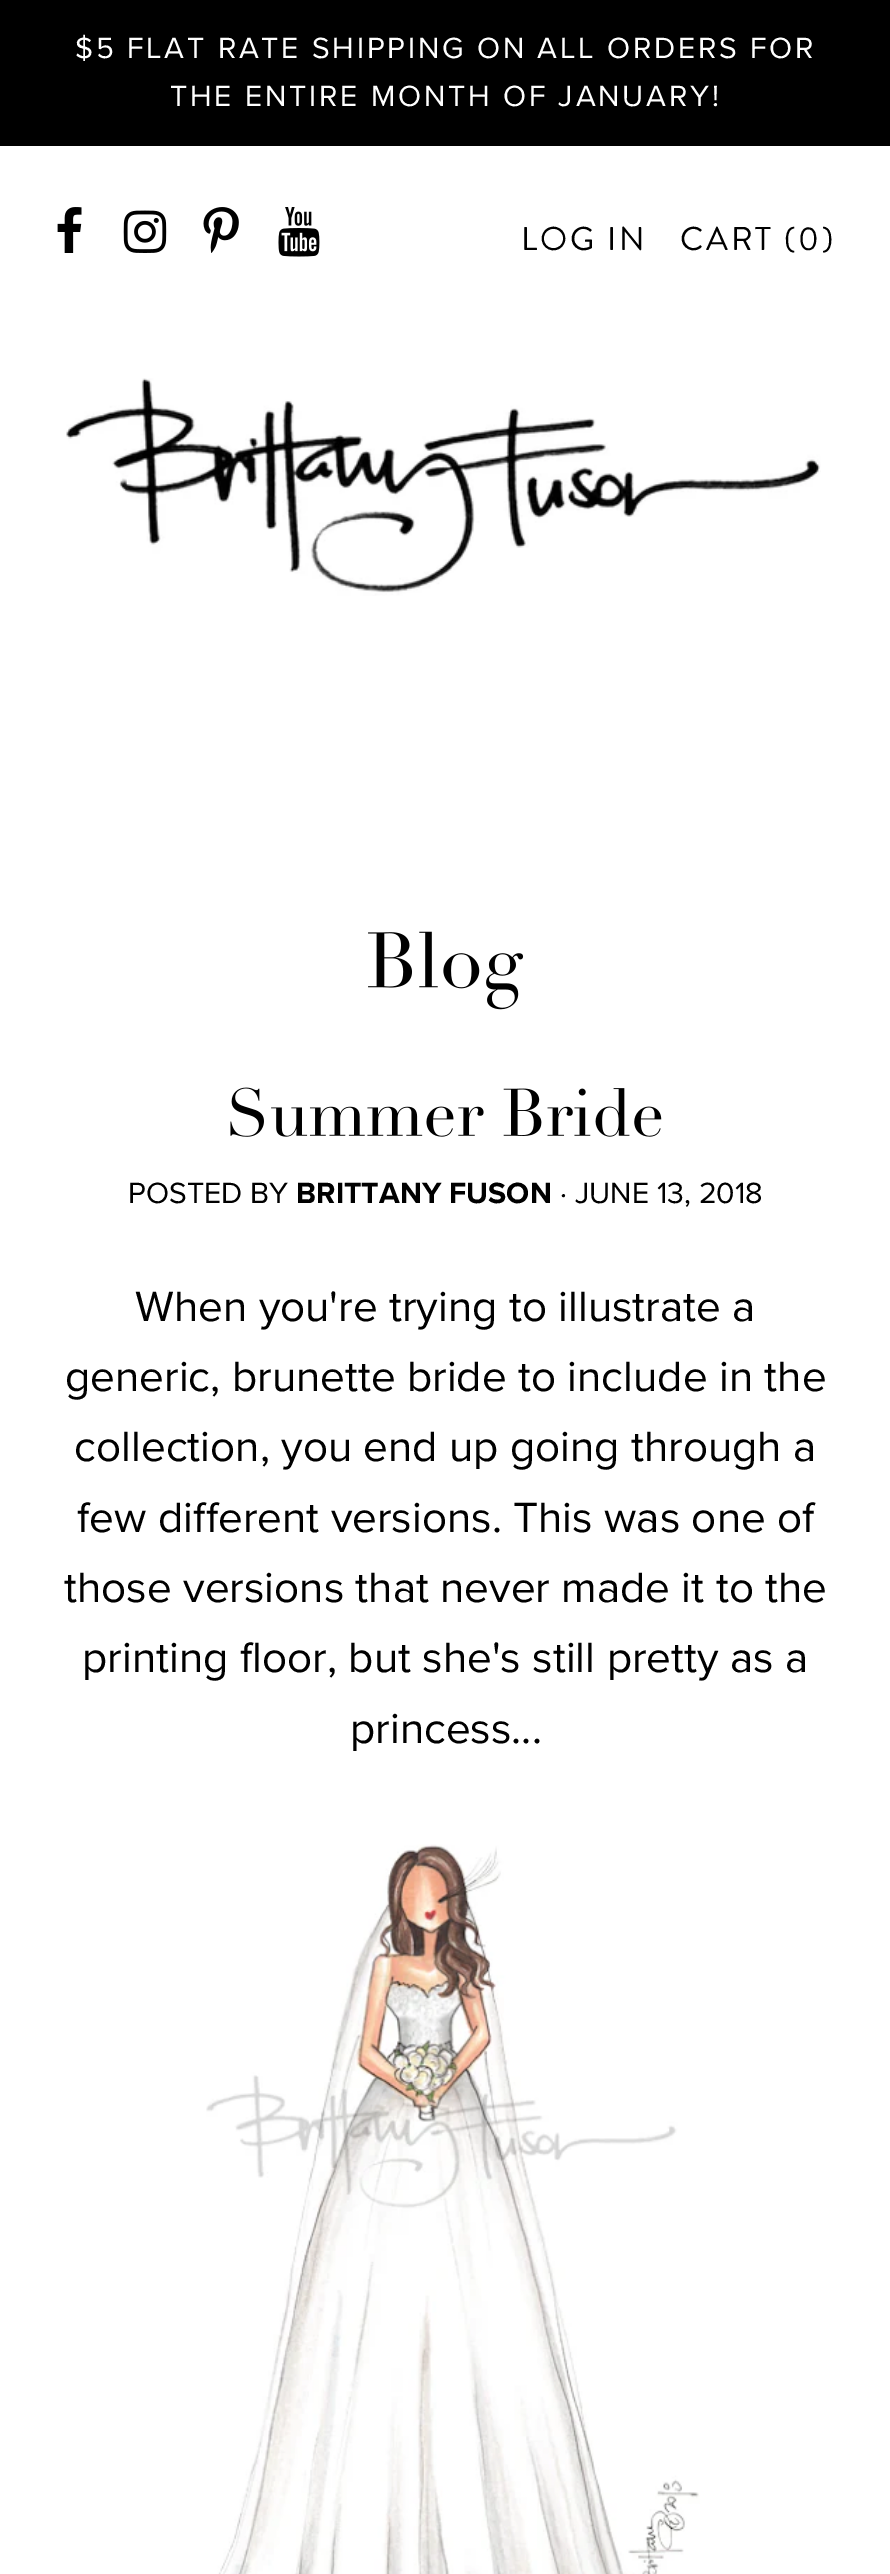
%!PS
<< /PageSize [890 2574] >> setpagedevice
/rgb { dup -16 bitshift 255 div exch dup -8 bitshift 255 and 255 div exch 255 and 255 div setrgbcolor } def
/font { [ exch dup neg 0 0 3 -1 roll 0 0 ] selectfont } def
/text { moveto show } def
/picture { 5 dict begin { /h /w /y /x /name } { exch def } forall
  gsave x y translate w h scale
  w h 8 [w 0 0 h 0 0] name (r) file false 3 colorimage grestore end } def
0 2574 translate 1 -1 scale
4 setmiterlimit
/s1 { /ProximaNova-Regular 30.25 font 16#000000 rgb } def
/s2 { /ProximaNova-Bold 30.25 font 16#000000 rgb } def
/s3 { /ProximaNova-Regular 44 font 16#000000 rgb } def
16#FFFFFF rgb
0 0 890 2574 rectfill
16#000000 rgb
0 0 890 146 rectfill
/ProximaNova-Regular 30.25 font
16#FFFFFF rgb
75 58 moveto 2.75 0 ($5 FLAT RATE SHIPPING ON ALL ORDERS FOR) ashow
170 106 moveto 2.75 0 (THE ENTIRE MONTH OF JANUARY!) ashow
(pic1.raw) 57 207 25 46 picture
(pic2.raw) 123 210 44 43 picture
(pic3.raw) 203 207 36 46 picture
(pic4.raw) 278 207 42 50 picture
/BrandonGrotesque-Regular 33 font
16#000000 rgb
521 250 moveto 2.75 0 (LOG IN) ashow
680 250 moveto 2.75 0 (CART \(0\)) ashow
(pic5.raw) 66 378 755 218 picture
(pic6.raw) 368 931 156 79 picture
(pic7.raw) 230 1087 432 50 picture
s1
(POSTED BY) 128 1203 text
s2
(BRITTANY FUSON) 296 1203 text
s1
(· JUNE 13, 2018) 560 1203 text
s3
(When you're trying to illustrate a) 135 1321 text
(generic, brunette bride to include in the) 65 1391 text
(collection, you end up going through a) 74 1461 text
(few different versions. This was one of) 77 1532 text
(those versions that never made it to the) 64 1602 text
(printing floor, but she's still pretty as a) 82 1672 text
(princess...) 350 1743 text
(pic8.raw) 206 1844 494 730 picture
showpage
